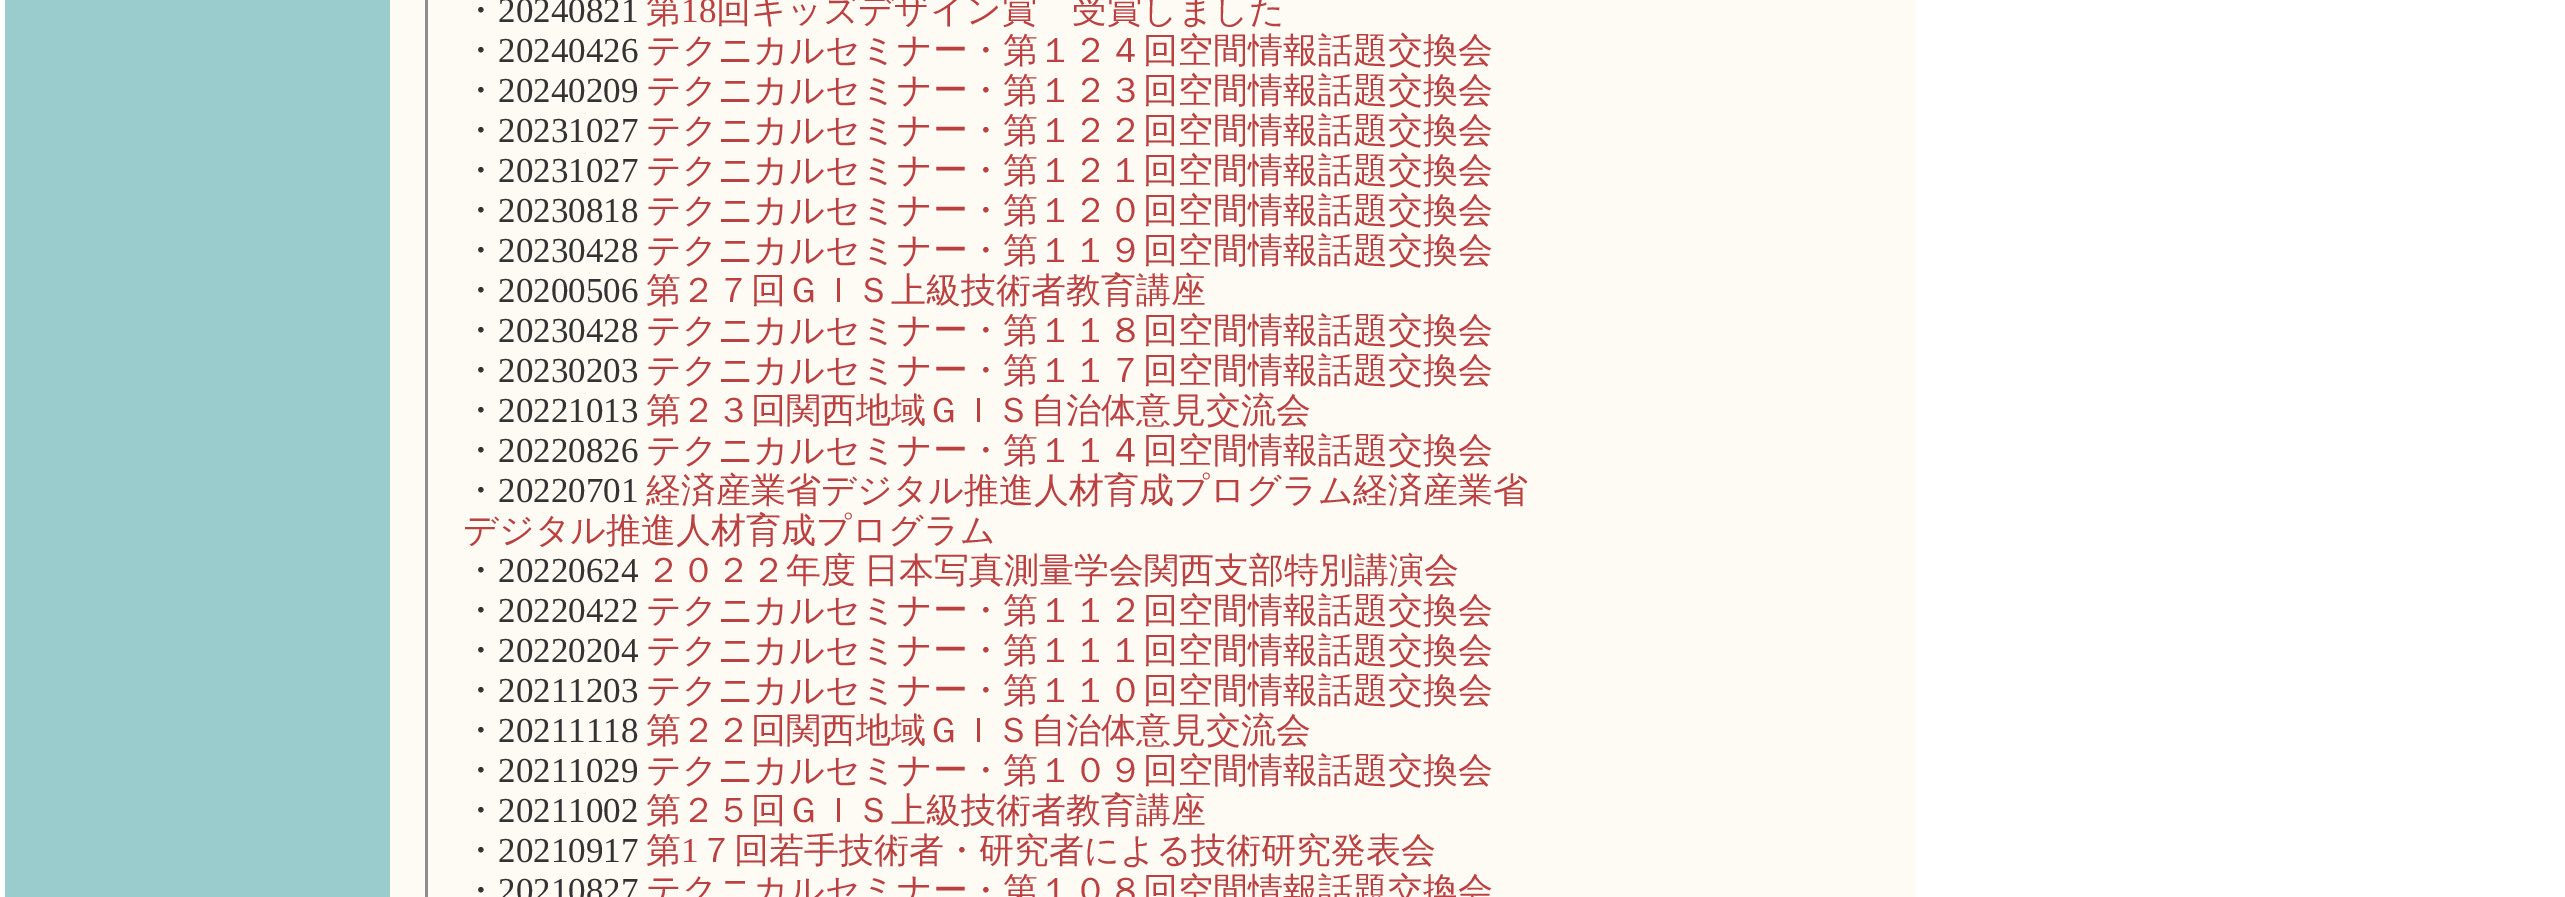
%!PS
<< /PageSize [2565 897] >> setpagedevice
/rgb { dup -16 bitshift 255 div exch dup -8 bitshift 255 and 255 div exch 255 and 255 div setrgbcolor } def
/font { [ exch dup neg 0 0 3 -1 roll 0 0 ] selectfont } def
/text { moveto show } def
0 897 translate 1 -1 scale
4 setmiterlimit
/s1 { /WenQuanYiZenHei-Medium 35 font 16#333333 rgb } def
/s2 { /LiberationSerif-Regular 35 font 16#333333 rgb } def
/s3 { /WenQuanYiZenHei-Medium 35 font 16#BB4040 rgb } def
/s4 { /LiberationSerif-Regular 35 font 16#BB4040 rgb } def
16#FFFFFF rgb
0 0 2565 897 rectfill
16#9ACCCD rgb
5 0 385 897 rectfill
16#FEFBF5 rgb
390 0 1525 897 rectfill
16#8E8E8E rgb
425 0 3 897 rectfill
s1
(・) 463 22 text
s2
(20240821) 498 22 text
s3
(第) 646 22 text
s4
(18) 681 22 text
s3
(回キッズデザイン賞　受賞しました) 716 22 text
s1
(・) 463 62 text
s2
(20240426) 498 62 text
s3
(テクニカルセミナー・第１２４回空間情報話題交換会) 646 62 text
s1
(・) 463 102 text
s2
(20240209) 498 102 text
s3
(テクニカルセミナー・第１２３回空間情報話題交換会) 646 102 text
s1
(・) 463 142 text
s2
(20231027) 498 142 text
s3
(テクニカルセミナー・第１２２回空間情報話題交換会) 646 142 text
s1
(・) 463 182 text
s2
(20231027) 498 182 text
s3
(テクニカルセミナー・第１２１回空間情報話題交換会) 646 182 text
s1
(・) 463 222 text
s2
(20230818) 498 222 text
s3
(テクニカルセミナー・第１２０回空間情報話題交換会) 646 222 text
s1
(・) 463 262 text
s2
(20230428) 498 262 text
s3
(テクニカルセミナー・第１１９回空間情報話題交換会) 646 262 text
s1
(・) 463 302 text
s2
(20200506) 498 302 text
s3
(第２７回ＧＩＳ上級技術者教育講座) 646 302 text
s1
(・) 463 342 text
s2
(20230428) 498 342 text
s3
(テクニカルセミナー・第１１８回空間情報話題交換会) 646 342 text
s1
(・) 463 382 text
s2
(20230203) 498 382 text
s3
(テクニカルセミナー・第１１７回空間情報話題交換会) 646 382 text
s1
(・) 463 422 text
s2
(20221013) 498 422 text
s3
(第２３回関西地域ＧＩＳ自治体意見交流会) 646 422 text
s1
(・) 463 462 text
s2
(20220826) 498 462 text
s3
(テクニカルセミナー・第１１４回空間情報話題交換会) 646 462 text
s1
(・) 463 502 text
s2
(20220701) 498 502 text
s3
(経済産業省デジタル推進人材育成プログラム経済産業省) 646 502 text
(デジタル推進人材育成プログラム) 463 542 text
s1
(・) 463 582 text
s2
(20220624) 498 582 text
/WenQuanYiZenHei-Medium 35 font
16#BB4040 rgb
646 582 moveto -2 0 32 (２０２２年度 日本写真測量学会関西支部特別講演会) widthshow
s1
(・) 463 622 text
s2
(20220422) 498 622 text
s3
(テクニカルセミナー・第１１２回空間情報話題交換会) 646 622 text
s1
(・) 463 662 text
s2
(20220204) 498 662 text
s3
(テクニカルセミナー・第１１１回空間情報話題交換会) 646 662 text
s1
(・) 463 702 text
s2
(20211203) 498 702 text
s3
(テクニカルセミナー・第１１０回空間情報話題交換会) 646 702 text
s1
(・) 463 742 text
s2
(20211118) 498 742 text
s3
(第２２回関西地域ＧＩＳ自治体意見交流会) 646 742 text
s1
(・) 463 782 text
s2
(20211029) 498 782 text
s3
(テクニカルセミナー・第１０９回空間情報話題交換会) 646 782 text
s1
(・) 463 822 text
s2
(20211002) 498 822 text
s3
(第２５回ＧＩＳ上級技術者教育講座) 646 822 text
s1
(・) 463 862 text
s2
(20210917) 498 862 text
s3
(第) 646 862 text
s4
(1) 681 862 text
s3
(７回若手技術者・研究者による技術研究発表会) 699 862 text
s1
(・) 463 902 text
s2
(20210827) 498 902 text
s3
(テクニカルセミナー・第１０８回空間情報話題交換会) 646 902 text
showpage
